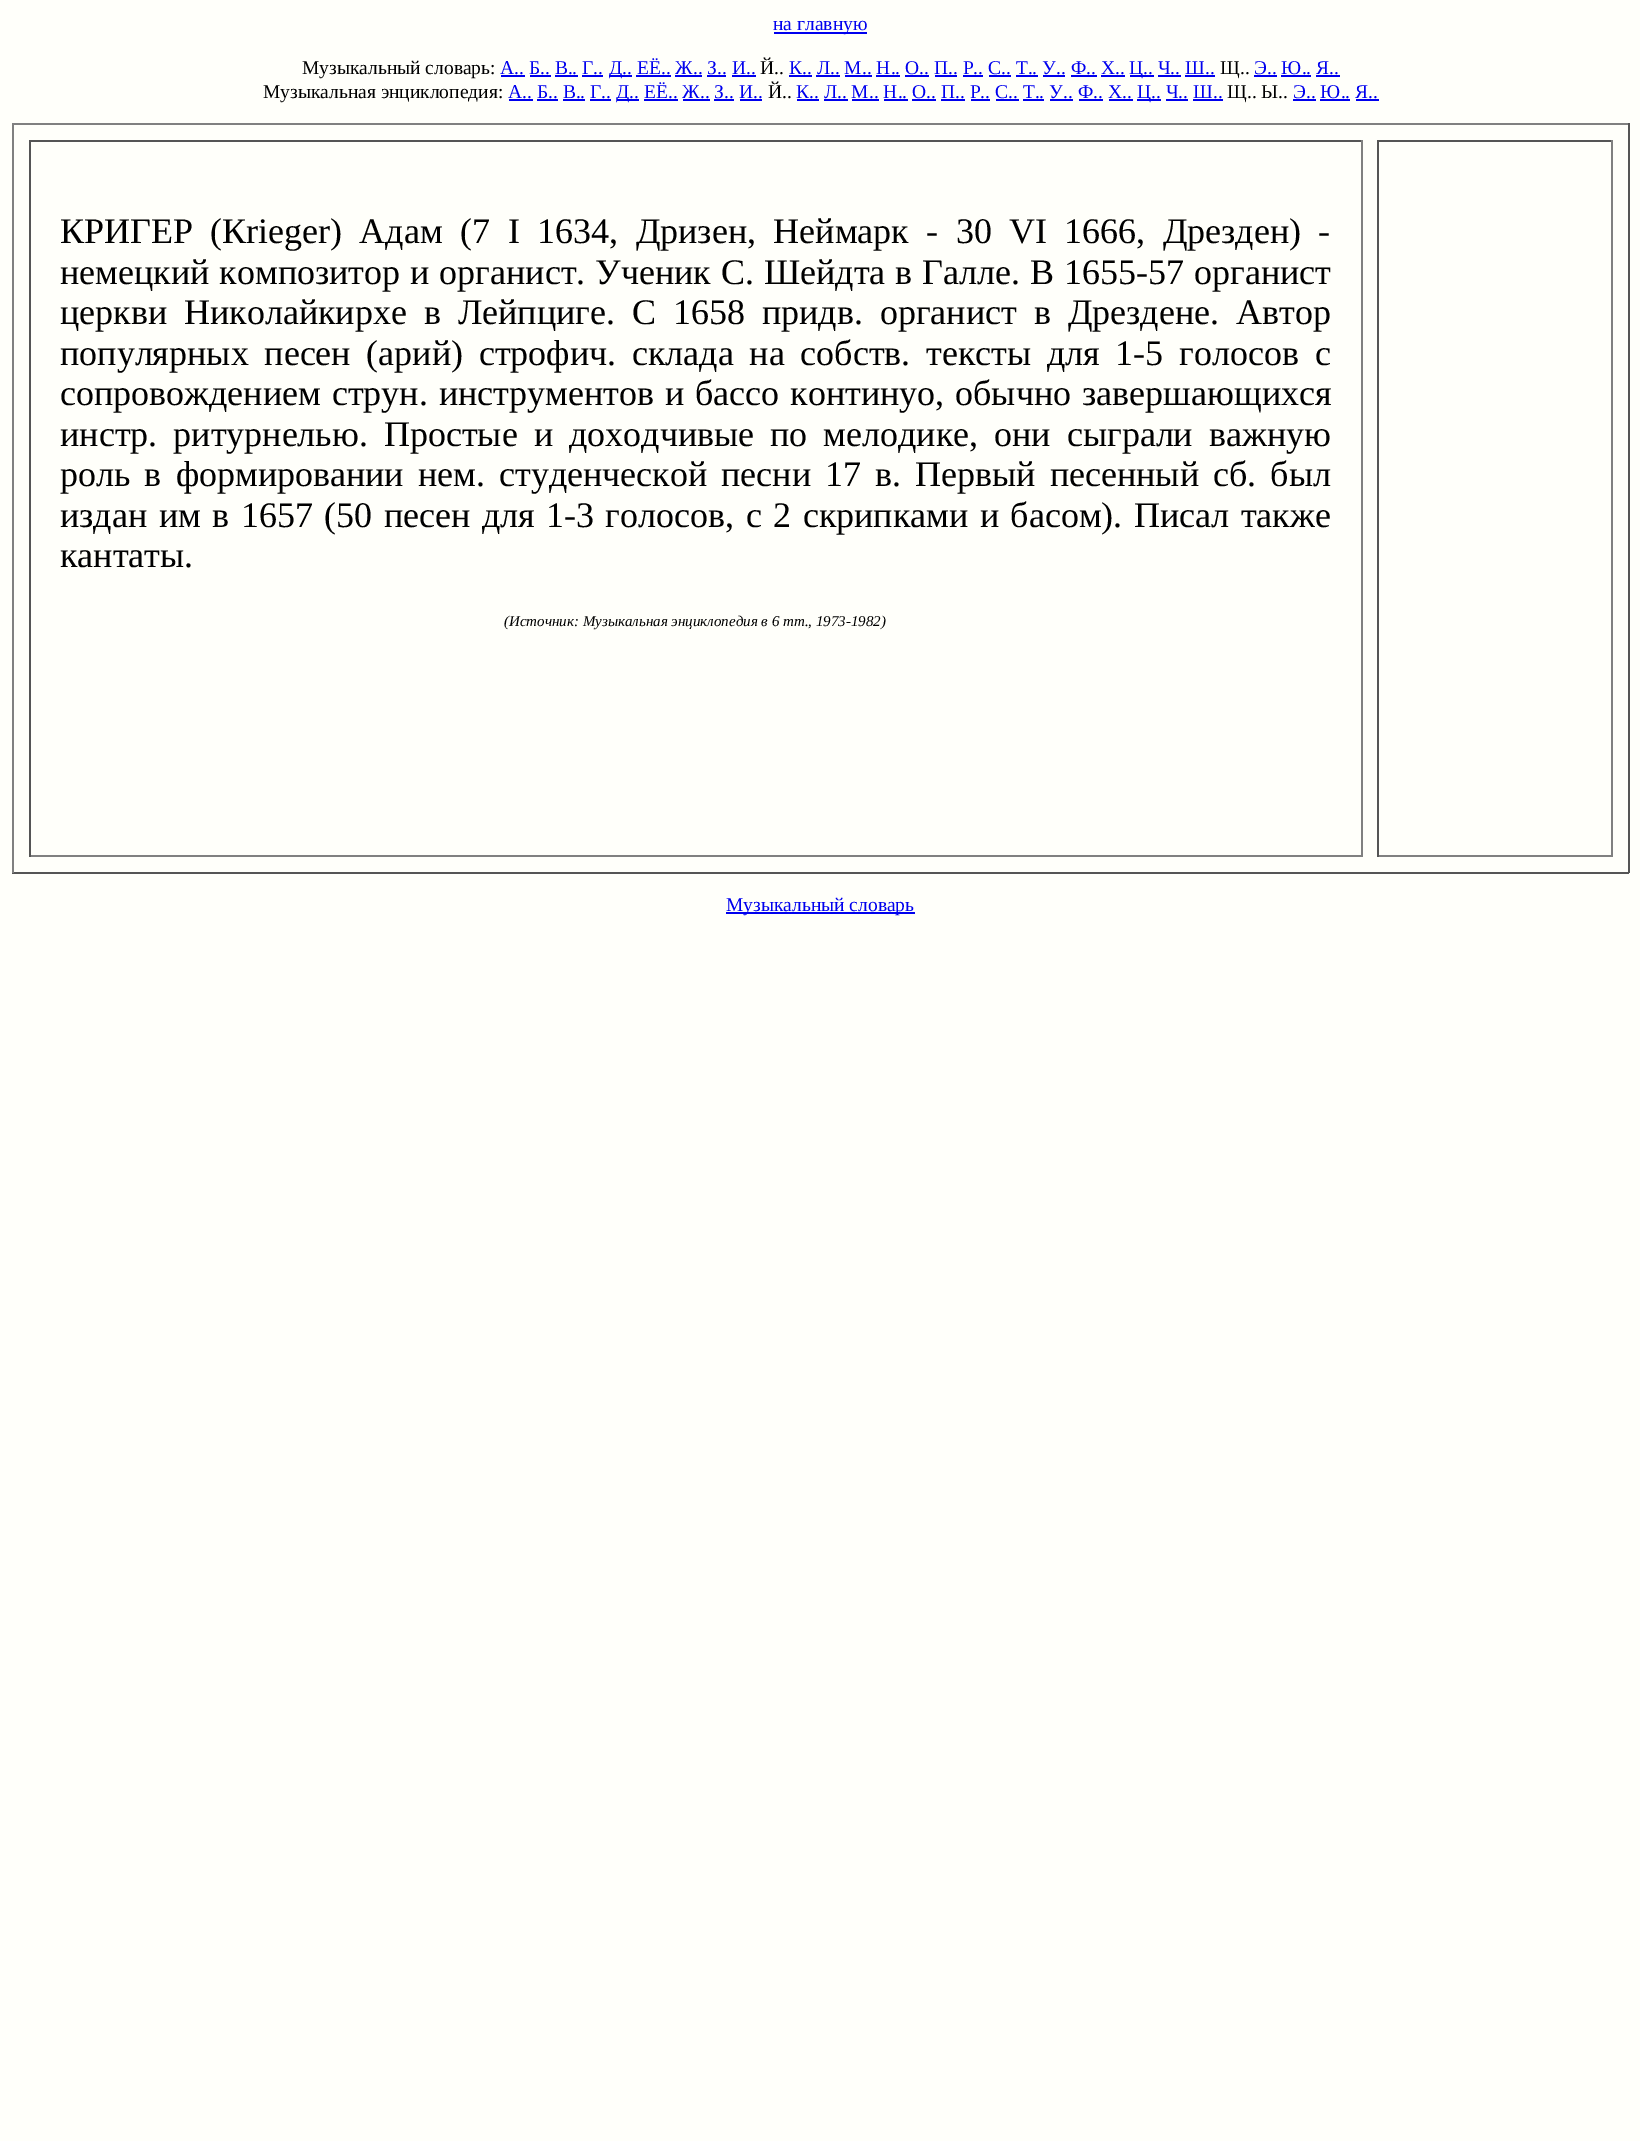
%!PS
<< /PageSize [1640 2141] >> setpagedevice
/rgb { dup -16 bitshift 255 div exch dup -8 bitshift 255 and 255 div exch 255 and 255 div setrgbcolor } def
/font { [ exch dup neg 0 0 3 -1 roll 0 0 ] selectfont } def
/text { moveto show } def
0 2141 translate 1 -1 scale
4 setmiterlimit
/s1 { /LiberationSerif-Regular 19.5 font 16#0000EE rgb } def
/s2 { /LiberationSerif-Regular 19.5 font 16#000000 rgb } def
/s3 { /LiberationSerif-Regular 36 font 16#000000 rgb } def
/s4 { /LiberationSerif-Italic 15 font 16#000000 rgb } def
16#FFFFFA rgb
0 0 1640 2141 rectfill
16#0000EE rgb
774 32 93 2 rectfill
s1
(на главную) 773 30 text
s2
(Музыкальный словарь:) 302 74 text
s1
(А.. Б.. В.. Г..) 500 74 text
501 75 24 2 rectfill
530 75 21 2 rectfill
555 75 23 2 rectfill
582 75 21 2 rectfill
609 75 23 2 rectfill
(Д.. ЕЁ.. Ж.. З.. И..) 609 74 text
636 75 35 2 rectfill
675 75 27 2 rectfill
707 75 19 2 rectfill
732 75 24 2 rectfill
s2
(Й..) 760 74 text
s1
(К.. Л.. М.. Н.. О.. П.. Р.. С.. Т.. У.. Ф.. Х..) 789 74 text
789 75 23 2 rectfill
816 75 24 2 rectfill
845 75 27 2 rectfill
876 75 24 2 rectfill
905 75 24 2 rectfill
935 75 22 2 rectfill
963 75 20 2 rectfill
989 75 22 2 rectfill
1016 75 22 2 rectfill
1043 75 22 2 rectfill
1071 75 26 2 rectfill
1101 75 24 2 rectfill
1130 75 24 2 rectfill
(Ц.. Ч.. Ш..) 1129 74 text
1158 75 23 2 rectfill
1185 75 30 2 rectfill
s2
(Щ..) 1220 74 text
s1
(Э.. Ю.. Я..) 1254 74 text
1254 75 23 2 rectfill
1281 75 30 2 rectfill
1316 75 24 2 rectfill
s2
(Музыкальная энциклопедия:) 263 98 text
s1
(А.. Б.. В.. Г..) 508 98 text
509 99 24 2 rectfill
537 99 21 2 rectfill
563 99 22 2 rectfill
590 99 21 2 rectfill
617 99 22 2 rectfill
(Д.. ЕЁ.. Ж.. З.. И..) 616 98 text
644 99 34 2 rectfill
683 99 27 2 rectfill
714 99 20 2 rectfill
740 99 22 2 rectfill
s2
(Й..) 768 98 text
s1
(К.. Л.. М.. Н.. О.. П.. Р.. С.. Т.. У.. Ф.. Х..) 796 98 text
797 99 22 2 rectfill
824 99 24 2 rectfill
852 99 27 2 rectfill
884 99 24 2 rectfill
912 99 24 2 rectfill
941 99 24 2 rectfill
971 99 19 2 rectfill
996 99 23 2 rectfill
1023 99 21 2 rectfill
1050 99 23 2 rectfill
1079 99 24 2 rectfill
1109 99 24 2 rectfill
1137 99 24 2 rectfill
(Ц.. Ч.. Ш..) 1137 98 text
1166 99 22 2 rectfill
1193 99 30 2 rectfill
s2
(Щ.. Ы..) 1227 98 text
s1
(Э.. Ю.. Я..) 1293 98 text
1293 99 23 2 rectfill
1320 99 30 2 rectfill
1356 99 23 2 rectfill
16#808080 rgb
12 123 1617 2 rectfill
16#555555 rgb
1628 123 2 750 rectfill
12 872 1617 2 rectfill
16#808080 rgb
12 123 2 750 rectfill
16#555555 rgb
29 140 1333 2 rectfill
16#808080 rgb
1361 140 2 717 rectfill
29 855 1333 2 rectfill
16#555555 rgb
29 140 2 717 rectfill
/LiberationSerif-Regular 36 font
16#000000 rgb
60 243 moveto 8.5 0 32 (КРИГЕР \(К) widthshow
(rieger) 246 243 text
330 243 moveto 8.5 0 32 (\) Адам \(7) widthshow
(I) 508 243 text
537 243 moveto 8.5 0 32 (1634, Дризен, Неймарк - 30) widthshow
(VI) 1009 243 text
1064 243 moveto 8.5 0 32 (1666, Дрезден\) -) widthshow
60 284 moveto 1 0 32 (немецкий композитор и органист. Ученик С. Шейдта в Галле. В 1655-57 органист) widthshow
60 324 moveto 8 0 32 (церкви Николайкирхе в Лейпциге. С 1658 придв. органист в Дрездене. Автор) widthshow
60 365 moveto 6.75 0 32 (популярных песен \(арий\) строфич. склада на собств. тексты для 1-5 голосов с) widthshow
60 405 moveto 2 0 32 (сопровождением струн. инструментов и бассо континуо, обычно завершающихся) widthshow
60 446 moveto 7 0 32 (инстр. ритурнелью. Простые и доходчивые по мелодике, они сыграли важную) widthshow
60 486 moveto 5.1 0 32 (роль в формировании нем. студенческой песни 17 в. Первый песенный сб. был) widthshow
60 527 moveto 2.5 0 32 (издан им в 1657 \(50 песен для 1-3 голосов, с 2 скрипками и басом\). Писал также) widthshow
(кантаты.) 60 567 text
s4
(\(Источник: Музыкальная энциклопедия в 6 тт., 1973-1982\)) 504 626 text
16#555555 rgb
1377 140 236 2 rectfill
16#808080 rgb
1611 140 2 717 rectfill
1377 855 236 2 rectfill
16#555555 rgb
1377 140 2 717 rectfill
16#0000EE rgb
726 912 189 2 rectfill
s1
(Музыкальный словарь) 726 911 text
showpage
